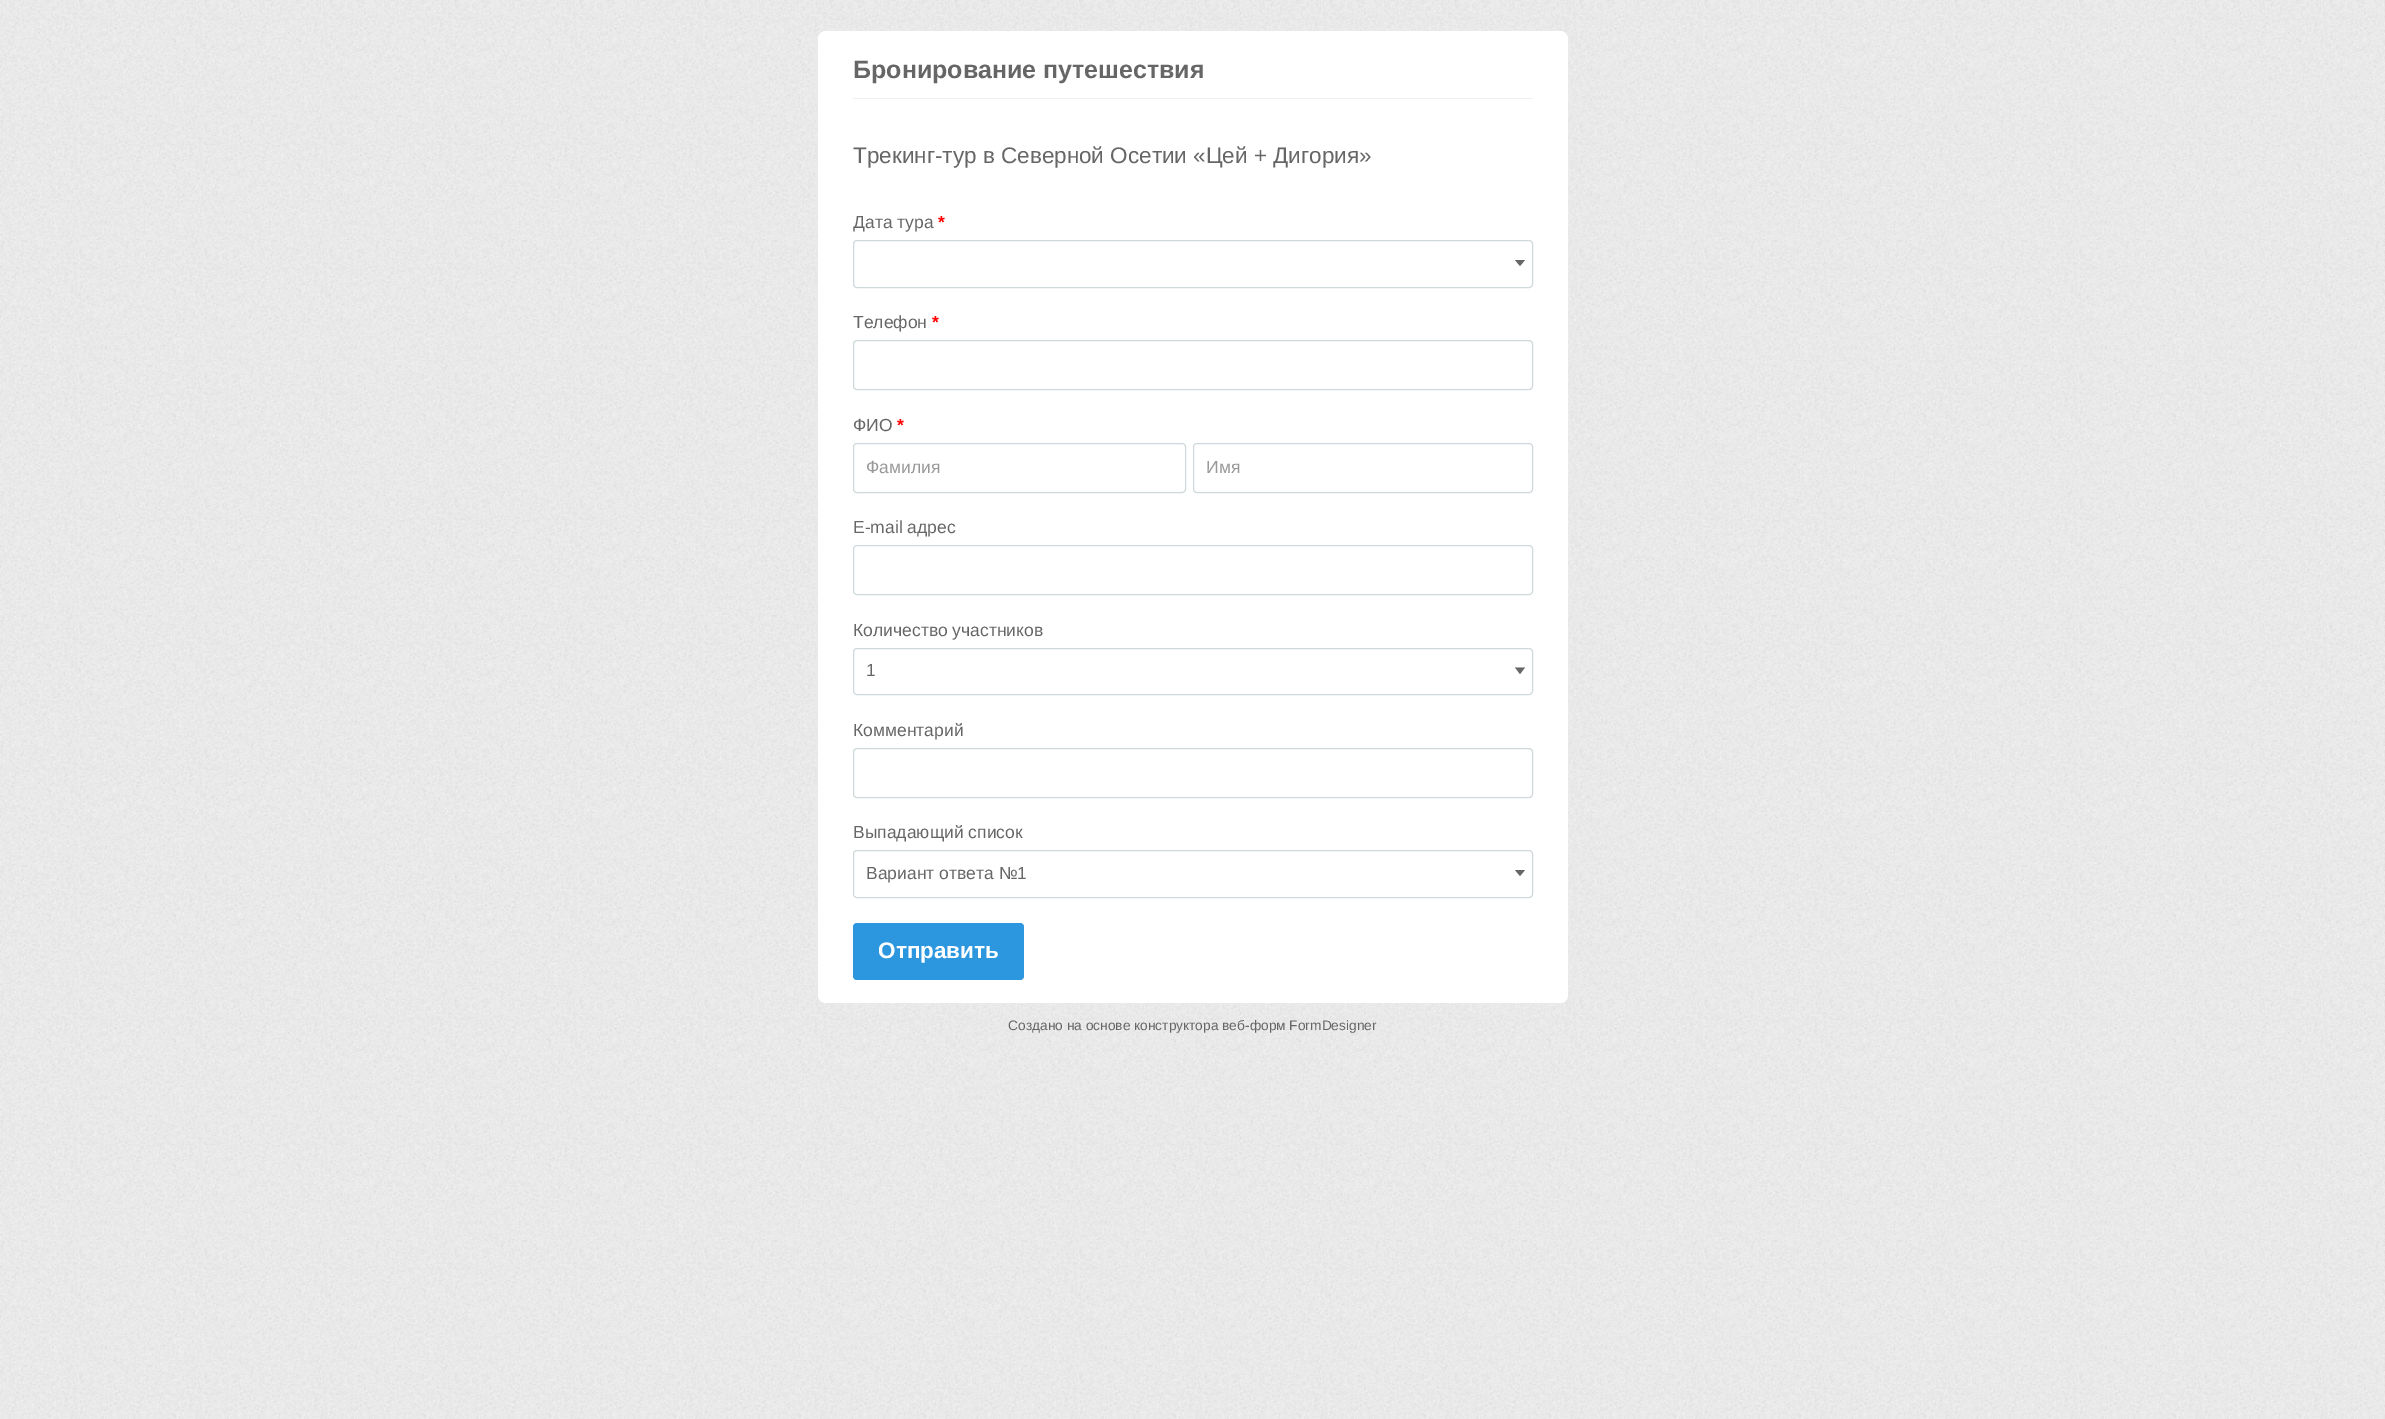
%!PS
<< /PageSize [2385 1419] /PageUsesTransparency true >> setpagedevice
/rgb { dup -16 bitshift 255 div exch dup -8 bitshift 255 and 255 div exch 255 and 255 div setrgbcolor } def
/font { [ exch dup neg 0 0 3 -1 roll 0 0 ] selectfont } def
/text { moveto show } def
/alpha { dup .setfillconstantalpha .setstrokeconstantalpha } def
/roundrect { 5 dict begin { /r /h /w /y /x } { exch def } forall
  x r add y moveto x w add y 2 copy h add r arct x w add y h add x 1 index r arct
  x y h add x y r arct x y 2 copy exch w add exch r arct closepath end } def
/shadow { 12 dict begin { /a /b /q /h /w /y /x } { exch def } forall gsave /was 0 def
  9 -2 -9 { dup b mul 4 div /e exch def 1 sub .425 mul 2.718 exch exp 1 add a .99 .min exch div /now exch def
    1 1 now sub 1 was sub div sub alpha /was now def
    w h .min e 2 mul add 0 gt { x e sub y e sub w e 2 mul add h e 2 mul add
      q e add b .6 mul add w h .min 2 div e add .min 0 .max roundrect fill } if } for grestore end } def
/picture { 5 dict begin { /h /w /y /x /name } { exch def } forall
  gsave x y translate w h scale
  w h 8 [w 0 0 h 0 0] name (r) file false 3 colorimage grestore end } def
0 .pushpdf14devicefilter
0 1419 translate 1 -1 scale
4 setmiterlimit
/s1 { /LiberationSans-Bold 25 font 16#666666 rgb } def
/s2 { /LiberationSans-Regular 22.5 font 16#666666 rgb } def
/s3 { /LiberationSans-Regular 17.5 font 16#666666 rgb } def
/s4 { /LiberationSans-Bold 17.5 font 16#FF0000 rgb } def
/s5 { /LiberationSans-Regular 17.5 font 16#989898 rgb } def
/s6 { /LiberationSans-Bold 22.5 font 16#FFFFFF rgb } def
/s7 { /LiberationSans-Regular 13.75 font 16#666666 rgb } def
16#FFFFFF rgb
0 0 2385 1419 rectfill
(pic1.raw) 0 0 2385 1419 picture
16#EAEAEA rgb
818 31 750 972 8 4 1 shadow
16#FFFFFF rgb
818 31 750 972 8 roundrect fill
16#ECF0F1 rgb
853 98 680 1 rectfill
s1
(Бронирование путешествия) 853 78 text
s2
(Трекинг-тур в Северной Осетии «Цей + Дигория») 853 163 text
s3
(Дата тура) 853 228 text
s4
(*) 938 228 text
16#CFD9DB rgb
853.5 240.5 679 47 3.5 roundrect stroke
16#666666 rgb
1515 260 moveto 1525 260 lineto 1520 266 lineto closepath fill
s3
(Телефон) 853 328 text
s4
(*) 932 328 text
16#CFD9DB rgb
853.5 340.5 679 49 3.5 roundrect stroke
s3
(ФИО) 853 431 text
s4
(*) 897 431 text
16#CFD9DB rgb
853.5 443.5 332 49 3.5 roundrect stroke
s5
(Фамилия) 866 473 text
16#CFD9DB rgb
1193.5 443.5 339 49 3.5 roundrect stroke
s5
(Имя) 1206 473 text
s3
(E-mail адрес) 853 533 text
16#CFD9DB rgb
853.5 545.5 679 49 3.5 roundrect stroke
s3
(Количество участников) 853 636 text
16#CFD9DB rgb
853.5 648.5 679 46 3.5 roundrect stroke
s3
(1) 866 676 text
1515 667.5 moveto 1525 667.5 lineto 1520 674 lineto closepath fill
(Комментарий) 853 736 text
16#CFD9DB rgb
853.5 748.5 679 49 3.5 roundrect stroke
s3
(Выпадающий список) 853 838 text
16#CFD9DB rgb
853.5 850.5 679 47 3.5 roundrect stroke
s3
(Вариант ответа №1) 866 879 text
1515 870 moveto 1525 870 lineto 1520 876 lineto closepath fill
16#2C97DE rgb
853 923 171 57 4 roundrect fill
s6
(Отправить) 878 958 text
s7
(Создано на основе конструктора веб-форм FormDesigner) 1008 1030 text
.poppdf14devicefilter showpage
